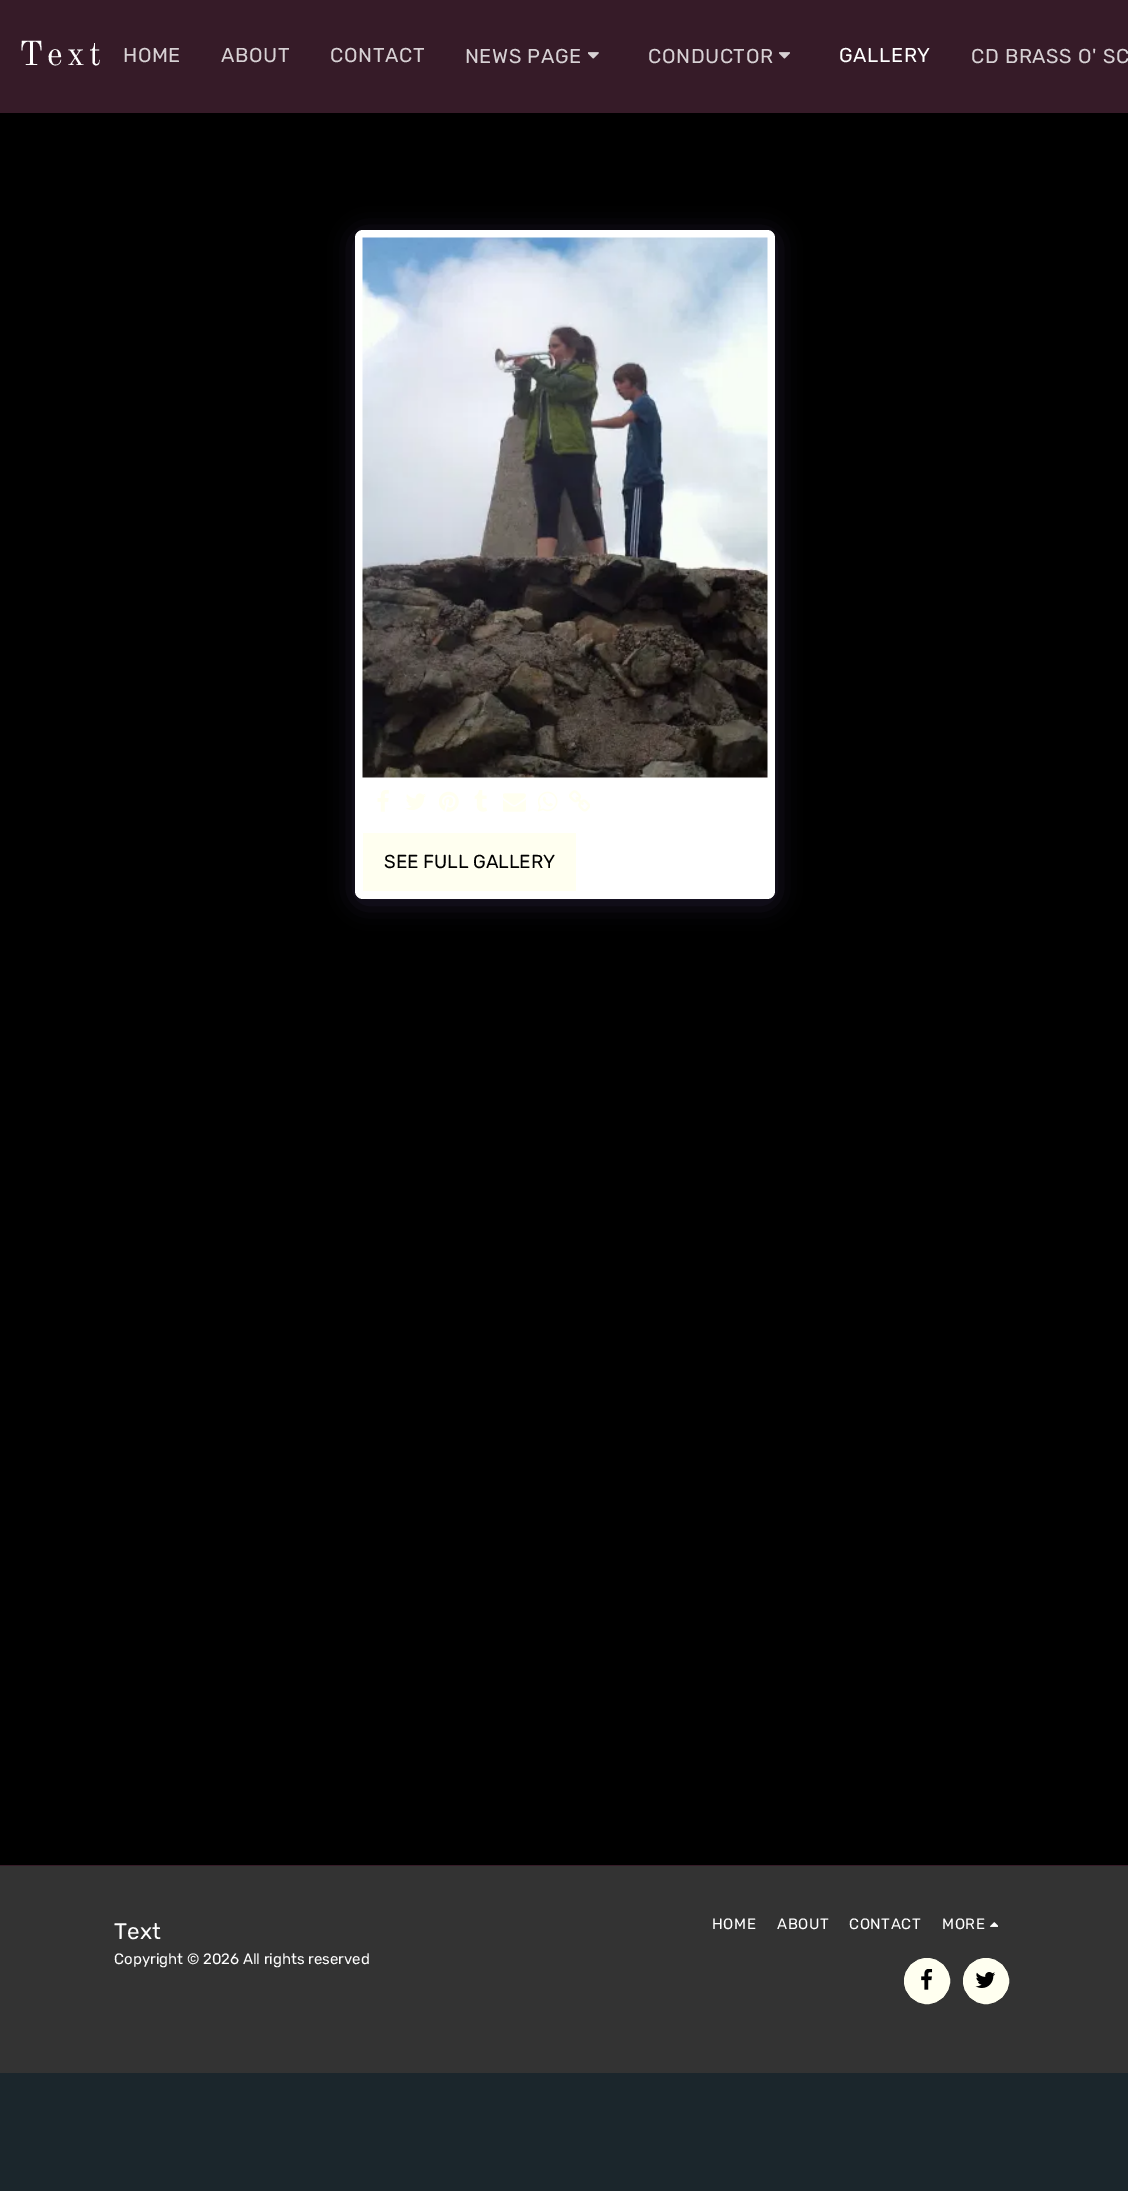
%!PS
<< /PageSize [1128 2191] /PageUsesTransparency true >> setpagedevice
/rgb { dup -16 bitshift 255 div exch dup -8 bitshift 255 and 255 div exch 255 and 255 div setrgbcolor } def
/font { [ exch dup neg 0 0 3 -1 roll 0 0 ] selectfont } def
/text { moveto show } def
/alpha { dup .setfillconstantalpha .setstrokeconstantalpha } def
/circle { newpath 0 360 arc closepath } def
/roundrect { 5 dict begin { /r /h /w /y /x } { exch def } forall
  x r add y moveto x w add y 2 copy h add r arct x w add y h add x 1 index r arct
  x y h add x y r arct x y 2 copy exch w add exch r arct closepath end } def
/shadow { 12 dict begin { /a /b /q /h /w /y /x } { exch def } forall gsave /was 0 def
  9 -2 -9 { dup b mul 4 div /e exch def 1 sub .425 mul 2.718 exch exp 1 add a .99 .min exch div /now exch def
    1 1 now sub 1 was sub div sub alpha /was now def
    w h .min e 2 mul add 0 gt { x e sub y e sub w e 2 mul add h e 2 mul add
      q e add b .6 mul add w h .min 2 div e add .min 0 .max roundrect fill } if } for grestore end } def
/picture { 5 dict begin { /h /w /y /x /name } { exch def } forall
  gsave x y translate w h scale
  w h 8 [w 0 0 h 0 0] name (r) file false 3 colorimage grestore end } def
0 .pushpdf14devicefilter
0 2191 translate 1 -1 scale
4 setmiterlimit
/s1 { /Rubik-Regular 18.75 font 16#000000 rgb } def
/s2 { /Rubik-Regular 22.5 font 16#FFFFFF rgb } def
/s3 { /Rubik-Regular 15 font 16#FFFFFF rgb } def
16#1B262C rgb
0 0 1128 2191 rectfill
16#000000 rgb
0 113 1128 1752 rectfill
-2 0 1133 118 0 7.5 0.35 shadow
16#361B28 rgb
0 0 1128 113 rectfill
/OldStandardTT-Regular 34 font
16#FFFFFF rgb
19 65 moveto 4 0 (Text) ashow
/Rubik-Regular 20 font
16#D7D1D4 rgb
123 62 moveto 0.6 0 (HOME) ashow
221 62 moveto 0.6 0 (ABOUT) ashow
330 62 moveto 0.6 0 (CONTACT) ashow
465 63 moveto 0.6 0 (NEWS PAGE) ashow
(pic1.raw) 588 52 11 7 picture
648 63 moveto 0.6 0 (CONDUCTOR) ashow
(pic2.raw) 779 52 11 7 picture
16#FFFFFF rgb
839 62 moveto 0.6 0 (GALLERY) ashow
16#D7D1D4 rgb
971 63 moveto 0.6 0 (CD BRASS O' SC) ashow
16#4D3F7A rgb
355 234 420 669 8 12.5 0.4 shadow
16#FFFFFF rgb
355 230 420 669 8 roundrect fill
(pic3.raw) 362 237 406 541 picture
(pic4.raw) 377 790 12 22 picture
(pic5.raw) 406 793 20 17 picture
(pic6.raw) 439 791 20 21 picture
(pic7.raw) 474 790 13 22 picture
(pic8.raw) 503 793 23 19 picture
(pic9.raw) 538 791 20 21 picture
(pic10.raw) 569 790 21 22 picture
16#FFFFF0 rgb
363 833 213 58 rectfill
s1
(SEE FULL GALLERY) 384 868 text
16#333333 rgb
0 1866 1128 207 rectfill
16#361B28 rgb
0 1865 1128 1 rectfill
s2
(Text) 114 1939 text
s3
(Copyright © 2026 All rights reserved) 114 1964 text
712 1929 moveto 0.6 0 (HOME) ashow
777 1929 moveto 0.6 0 (ABOUT) ashow
849 1929 moveto 0.6 0 (CONTACT) ashow
942 1929 moveto 0.6 0 (MORE) ashow
(pic11.raw) 990 1922 8 5 picture
16#FFFFF0 rgb
927 1981 22.5 circle gsave fill grestore
stroke
(pic12.raw) 921 1969 12 21 picture
986 1981 22.5 circle gsave fill grestore
stroke
(pic13.raw) 975 1972 20 16 picture
.poppdf14devicefilter showpage
